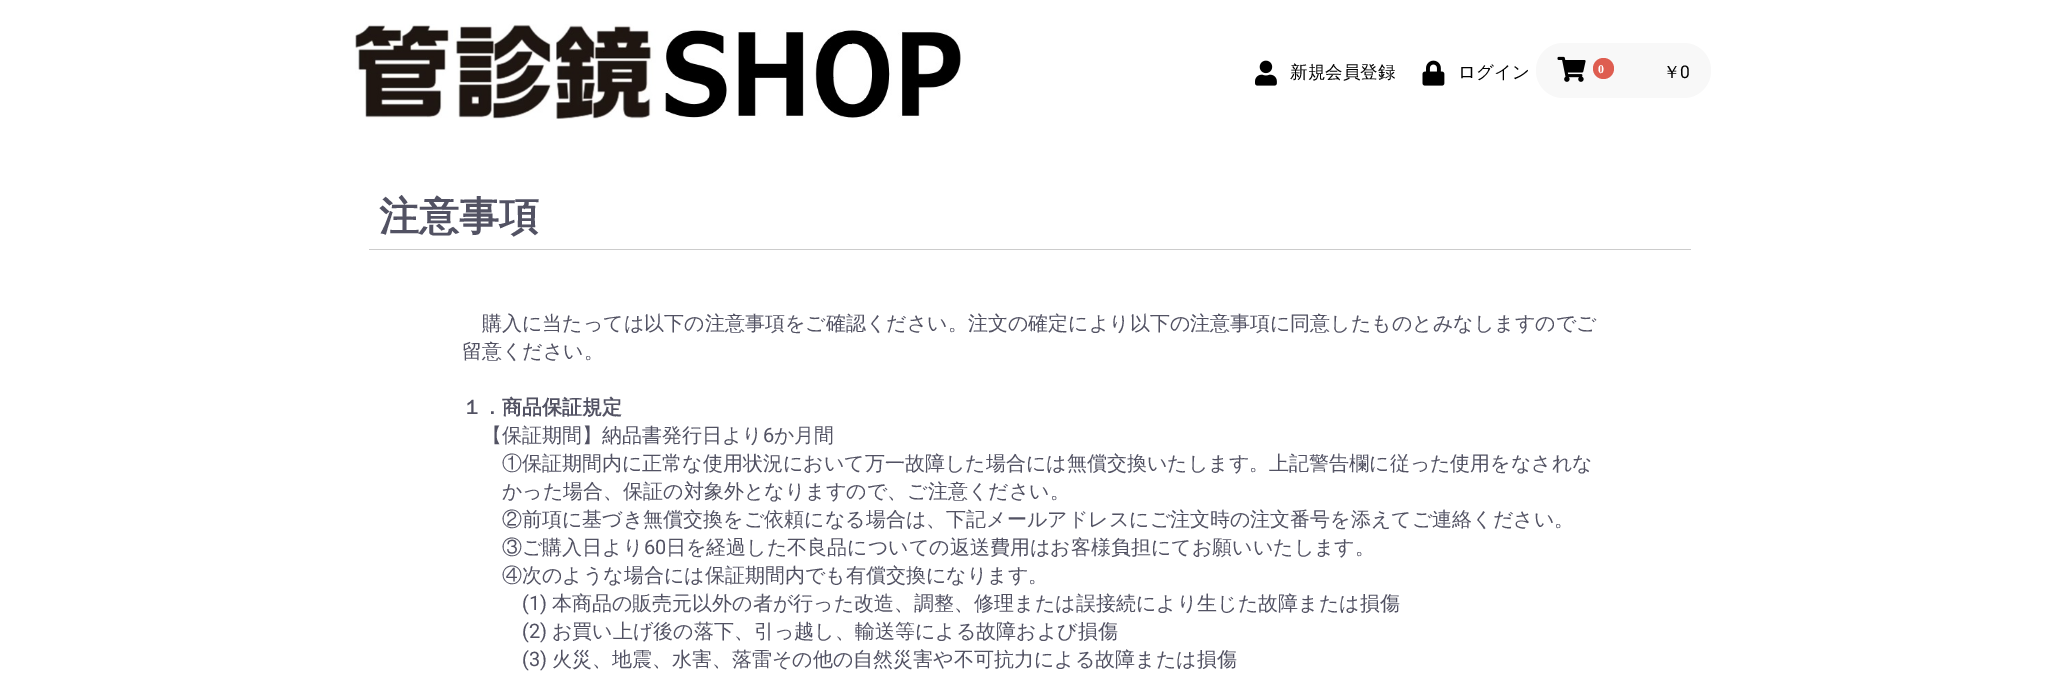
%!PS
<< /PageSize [2059 681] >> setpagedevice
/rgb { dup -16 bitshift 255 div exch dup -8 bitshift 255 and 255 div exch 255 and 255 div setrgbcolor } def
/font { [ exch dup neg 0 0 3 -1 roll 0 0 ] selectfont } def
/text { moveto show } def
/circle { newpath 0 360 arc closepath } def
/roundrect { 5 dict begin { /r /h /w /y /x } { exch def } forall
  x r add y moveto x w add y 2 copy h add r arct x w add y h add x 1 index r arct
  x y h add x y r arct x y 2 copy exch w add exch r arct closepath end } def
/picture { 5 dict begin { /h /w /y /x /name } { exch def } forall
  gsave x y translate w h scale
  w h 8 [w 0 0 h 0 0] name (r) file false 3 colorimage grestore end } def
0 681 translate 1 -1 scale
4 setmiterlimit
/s1 { /WenQuanYiZenHei-Medium 17.5 font 16#000000 rgb } def
/s2 { /LiberationSerif-Bold 12 font 16#FFFFFF rgb } def
/s3 { /Roboto-Regular 17.5 font 16#000000 rgb } def
/s4 { /WenQuanYiZenHei-Bold 40 font 16#525263 rgb } def
/s5 { /WenQuanYiZenHei-Medium 20 font 16#525263 rgb } def
/s6 { /WenQuanYiZenHei-Bold 20 font 16#525263 rgb } def
/s7 { /Roboto-Regular 20 font 16#525263 rgb } def
16#FFFFFF rgb
0 0 2059 681 rectfill
(pic1.raw) 355 24 606 96 picture
(pic2.raw) 1255 60 22 26 picture
s1
(新規会員登録) 1290 78 text
(pic3.raw) 1422 60 23 26 picture
(ログイン) 1458 78 text
16#F8F8F8 rgb
1536 43 175 55 27.5 roundrect fill
(pic4.raw) 1557 56 29 26 picture
16#DE5D50 rgb
1603.5 68.5 10.5 circle fill
s2
(0) 1598 73 text
s1
(￥) 1663 78 text
s3
(0) 1680 78 text
16#CCCCCC rgb
369 249 1322 1 rectfill
s4
(注意事項) 379 230 text
s5
(購入に当たっては以下の注意事項をご確認ください。注文の確定により以下の注意事項に同意したものとみなしますのでご) 482 330 text
(留意ください。) 462 358 text
s6
(１．商品保証規定) 462 414 text
s5
(【保証期間】納品書発行日より) 482 442 text
s7
(6) 763 442 text
s5
(か月間) 774 442 text
(①保証期間内に正常な使用状況において万一故障した場合には無償交換いたします。上記警告欄に従った使用をなされな) 502 470 text
(かった場合、保証の対象外となりますので、ご注意ください。) 502 498 text
(②前項に基づき無償交換をご依頼になる場合は、下記メールアドレスにご注文時の注文番号を添えてご連絡ください。) 502 526 text
(③ご購入日より) 502 554 text
s7
(60) 644 554 text
s5
(日を経過した不良品についての返送費用はお客様負担にてお願いいたします。) 666 554 text
(④次のような場合には保証期間内でも有償交換になります。) 502 582 text
s7
(\(1\)) 522 610 text
s5
(本商品の販売元以外の者が行った改造、調整、修理または誤接続により生じた故障または損傷) 552 610 text
s7
(\(2\)) 522 638 text
s5
(お買い上げ後の落下、引っ越し、輸送等による故障および損傷) 552 638 text
s7
(\(3\)) 522 666 text
s5
(火災、地震、水害、落雷その他の自然災害や不可抗力による故障または損傷) 552 666 text
showpage
